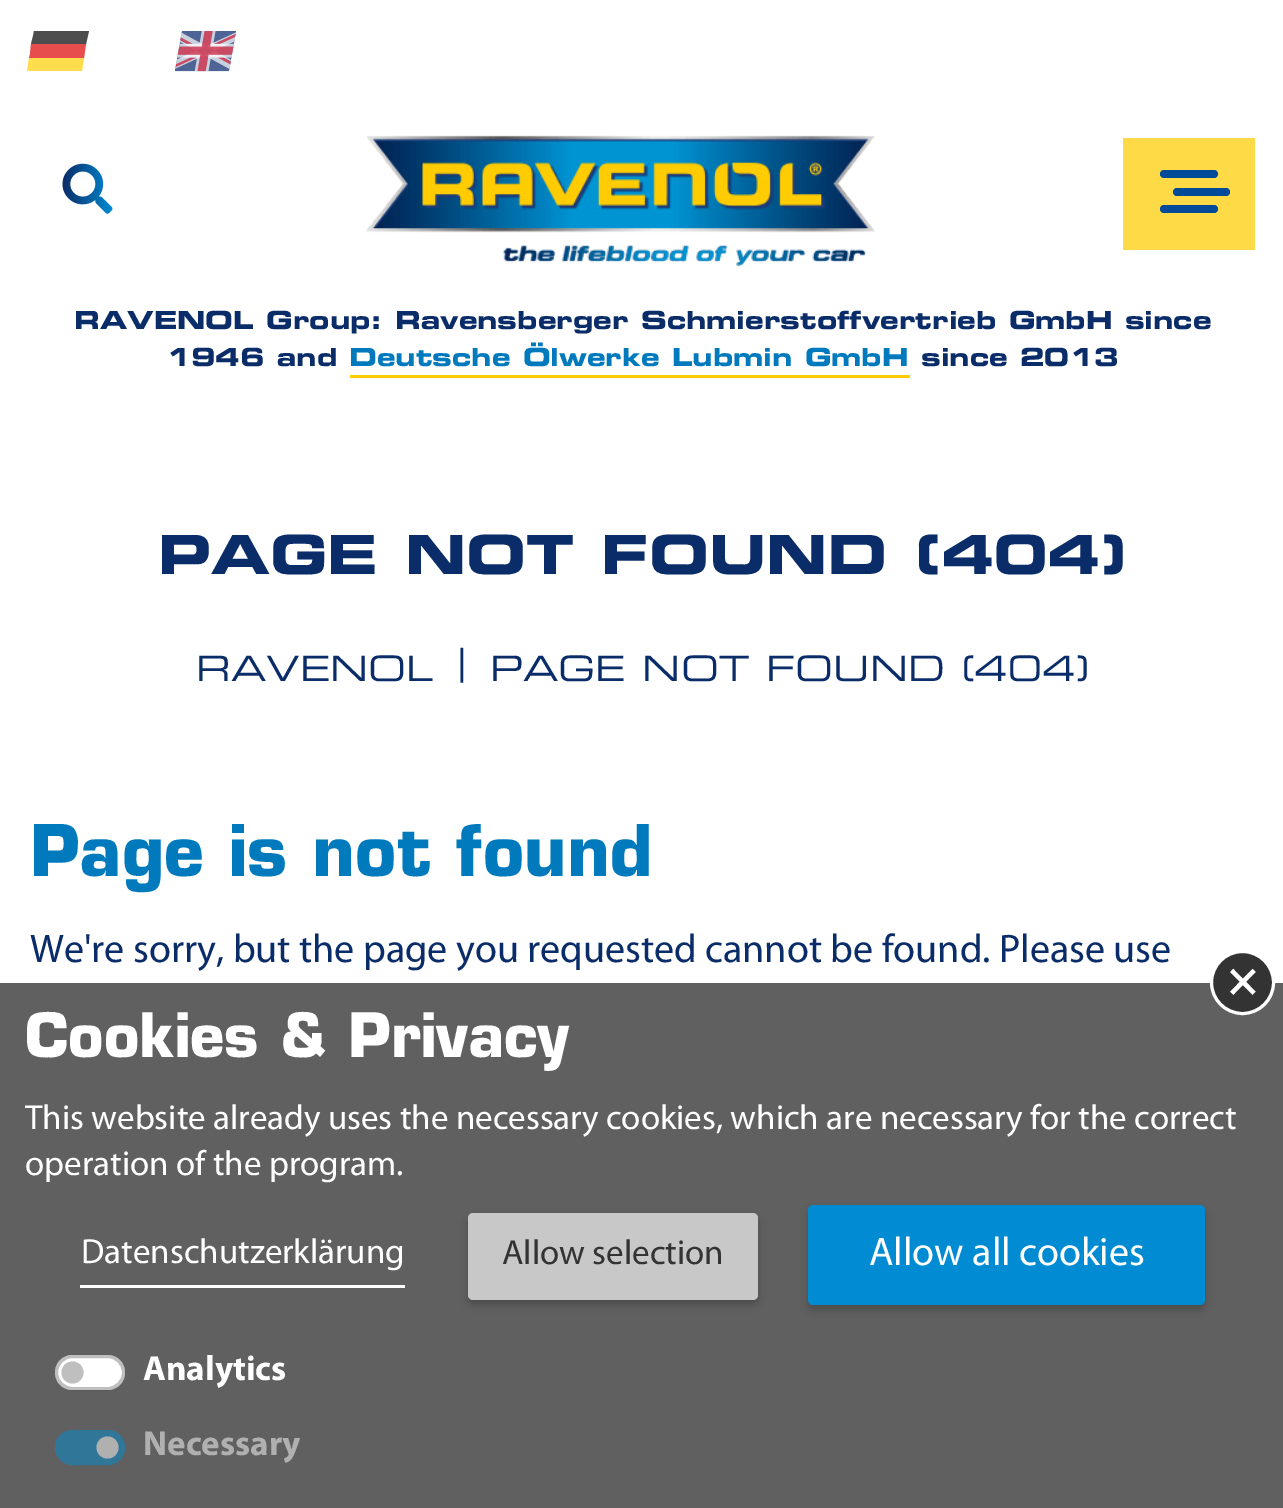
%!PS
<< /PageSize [1283 1508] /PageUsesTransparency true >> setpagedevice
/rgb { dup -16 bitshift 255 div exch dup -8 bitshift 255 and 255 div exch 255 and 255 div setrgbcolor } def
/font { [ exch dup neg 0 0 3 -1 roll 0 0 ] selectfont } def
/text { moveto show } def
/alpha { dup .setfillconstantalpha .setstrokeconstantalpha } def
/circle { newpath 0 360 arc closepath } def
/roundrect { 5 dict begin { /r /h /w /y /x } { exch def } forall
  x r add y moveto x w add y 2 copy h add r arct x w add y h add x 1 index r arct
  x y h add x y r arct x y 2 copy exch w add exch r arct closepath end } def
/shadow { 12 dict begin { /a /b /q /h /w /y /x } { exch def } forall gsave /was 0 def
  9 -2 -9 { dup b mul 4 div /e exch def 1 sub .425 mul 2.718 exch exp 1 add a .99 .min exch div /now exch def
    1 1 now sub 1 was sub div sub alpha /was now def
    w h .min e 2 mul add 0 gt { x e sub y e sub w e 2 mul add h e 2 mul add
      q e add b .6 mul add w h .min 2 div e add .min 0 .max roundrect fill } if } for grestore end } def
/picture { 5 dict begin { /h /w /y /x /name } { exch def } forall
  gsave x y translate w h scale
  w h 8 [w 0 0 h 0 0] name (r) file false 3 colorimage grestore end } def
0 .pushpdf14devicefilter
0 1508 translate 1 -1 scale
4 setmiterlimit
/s1 { /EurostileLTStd-Bold 25 font 16#0A2C68 rgb } def
/s2 { /EurostileLTStd-Bold 25 font 16#007ABC rgb } def
/s3 { /EurostileLTStd-Bold 54 font 16#0A2C68 rgb } def
/s4 { /EurostileLTStd-Regular 35 font 16#0A2C68 rgb } def
/s5 { /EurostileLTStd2-Bold 69.5 font 16#007ABC rgb } def
/s6 { /Myriad-Regular 40 font 16#0A2C68 rgb } def
/s7 { /Myriad-Bold 50 font 16#FFFFFF rgb } def
/s8 { /Myriad-Regular 35 font 16#FFFFFF rgb } def
/s9 { /Myriad-Regular 35 font 16#333333 rgb } def
/s10 { /Myriad-Regular 40 font 16#FFFFFF rgb } def
/s11 { /EurostileLTStd2-Bold 59.75 font 16#FFFFFF rgb } def
/s12 { /Myriad-Bold 35 font 16#FFFFFF rgb } def
/s13 { /Myriad-Bold 35 font 16#B0B0B0 rgb } def
16#FFFFFF rgb
0 0 1283 1508 rectfill
16#FFDD4D rgb
29 58 moveto 27 71 lineto 82 71 lineto 84 58 lineto closepath fill
16#4D4D4D rgb
33 36 moveto 31 44 lineto 86 44 lineto 89 31 lineto 34 31 lineto closepath fill
16#E74D4D rgb
30 54 moveto 29 58 lineto 84 58 lineto 86 44 lineto 31 44 lineto closepath fill
(pic1.raw) 174 30 63 42 picture
(pic2.raw) 62 163 51 51 picture
(pic3.raw) 366 135 509 132 picture
16#FFDA47 rgb
1123 138 132 112 rectfill
16#004A9A rgb
1160 170 58 8 4 roundrect fill
1173 188 57 8 4 roundrect fill
1160 205 58 8 4 roundrect fill
s1
(RAVENOL Group: Ravensberger Schmierstoffvertrieb GmbH since) 74 329 text
(1946 and) 166 366 text
s2
(Deutsche Ölwerke Lubmin GmbH) 349 366 text
16#FFCC00 rgb
350 375 560 3 rectfill
s1
(since 2013) 921 366 text
s3
(PAGE NOT FOUND \(404\)) 158 574 text
s4
(RAVENOL) 196 681 text
(|) 458 674 text
(PAGE NOT FOUND \(404\)) 490 681 text
s5
(Page is not found) 30 876 text
s6
(We're sorry, but the page you requested cannot be found. Please use) 30 962 text
16#606060 rgb
0 983 1283 525 rectfill
16#333333 rgb
1242.5 982.5 31 circle gsave fill grestore
16#FFFFFF rgb
3 setlinewidth
stroke
s7
(×) 1228 995 text
80 1285 325 3 rectfill
s8
(Datenschutzerklärung) 81 1263 text
16#000000 rgb
468 1218 290 87 5 4 0.2 shadow
16#C8C8C8 rgb
468 1213 290 87 5 roundrect fill
s9
(Allow selection) 502 1264 text
16#000000 rgb
808 1210 397 100 5 4 0.2 shadow
16#008BD2 rgb
808 1205 397 100 5 roundrect fill
s10
(Allow all cookies) 869 1265 text
s11
(Cookies & Privacy) 25 1057 text
s8
(This website already uses the necessary cookies, which are necessary for the correct) 25 1129 text
(operation of the program.) 25 1175 text
55 1355 70 35 17.5 roundrect fill
16#BFBFBF rgb
72.5 1372.5 11 circle fill
0.25 alpha
16#000000 rgb
56.5 1356.5 67 32 16 roundrect stroke
1 alpha
s12
(Analytics) 143 1380 text
16#307699 rgb
55 1430 70 35 17.5 roundrect fill
16#B0B0B0 rgb
107.5 1447.5 11 circle fill
16#307699 rgb
56.5 1431.5 67 32 16 roundrect stroke
s13
(Necessary) 143 1455 text
.poppdf14devicefilter showpage
